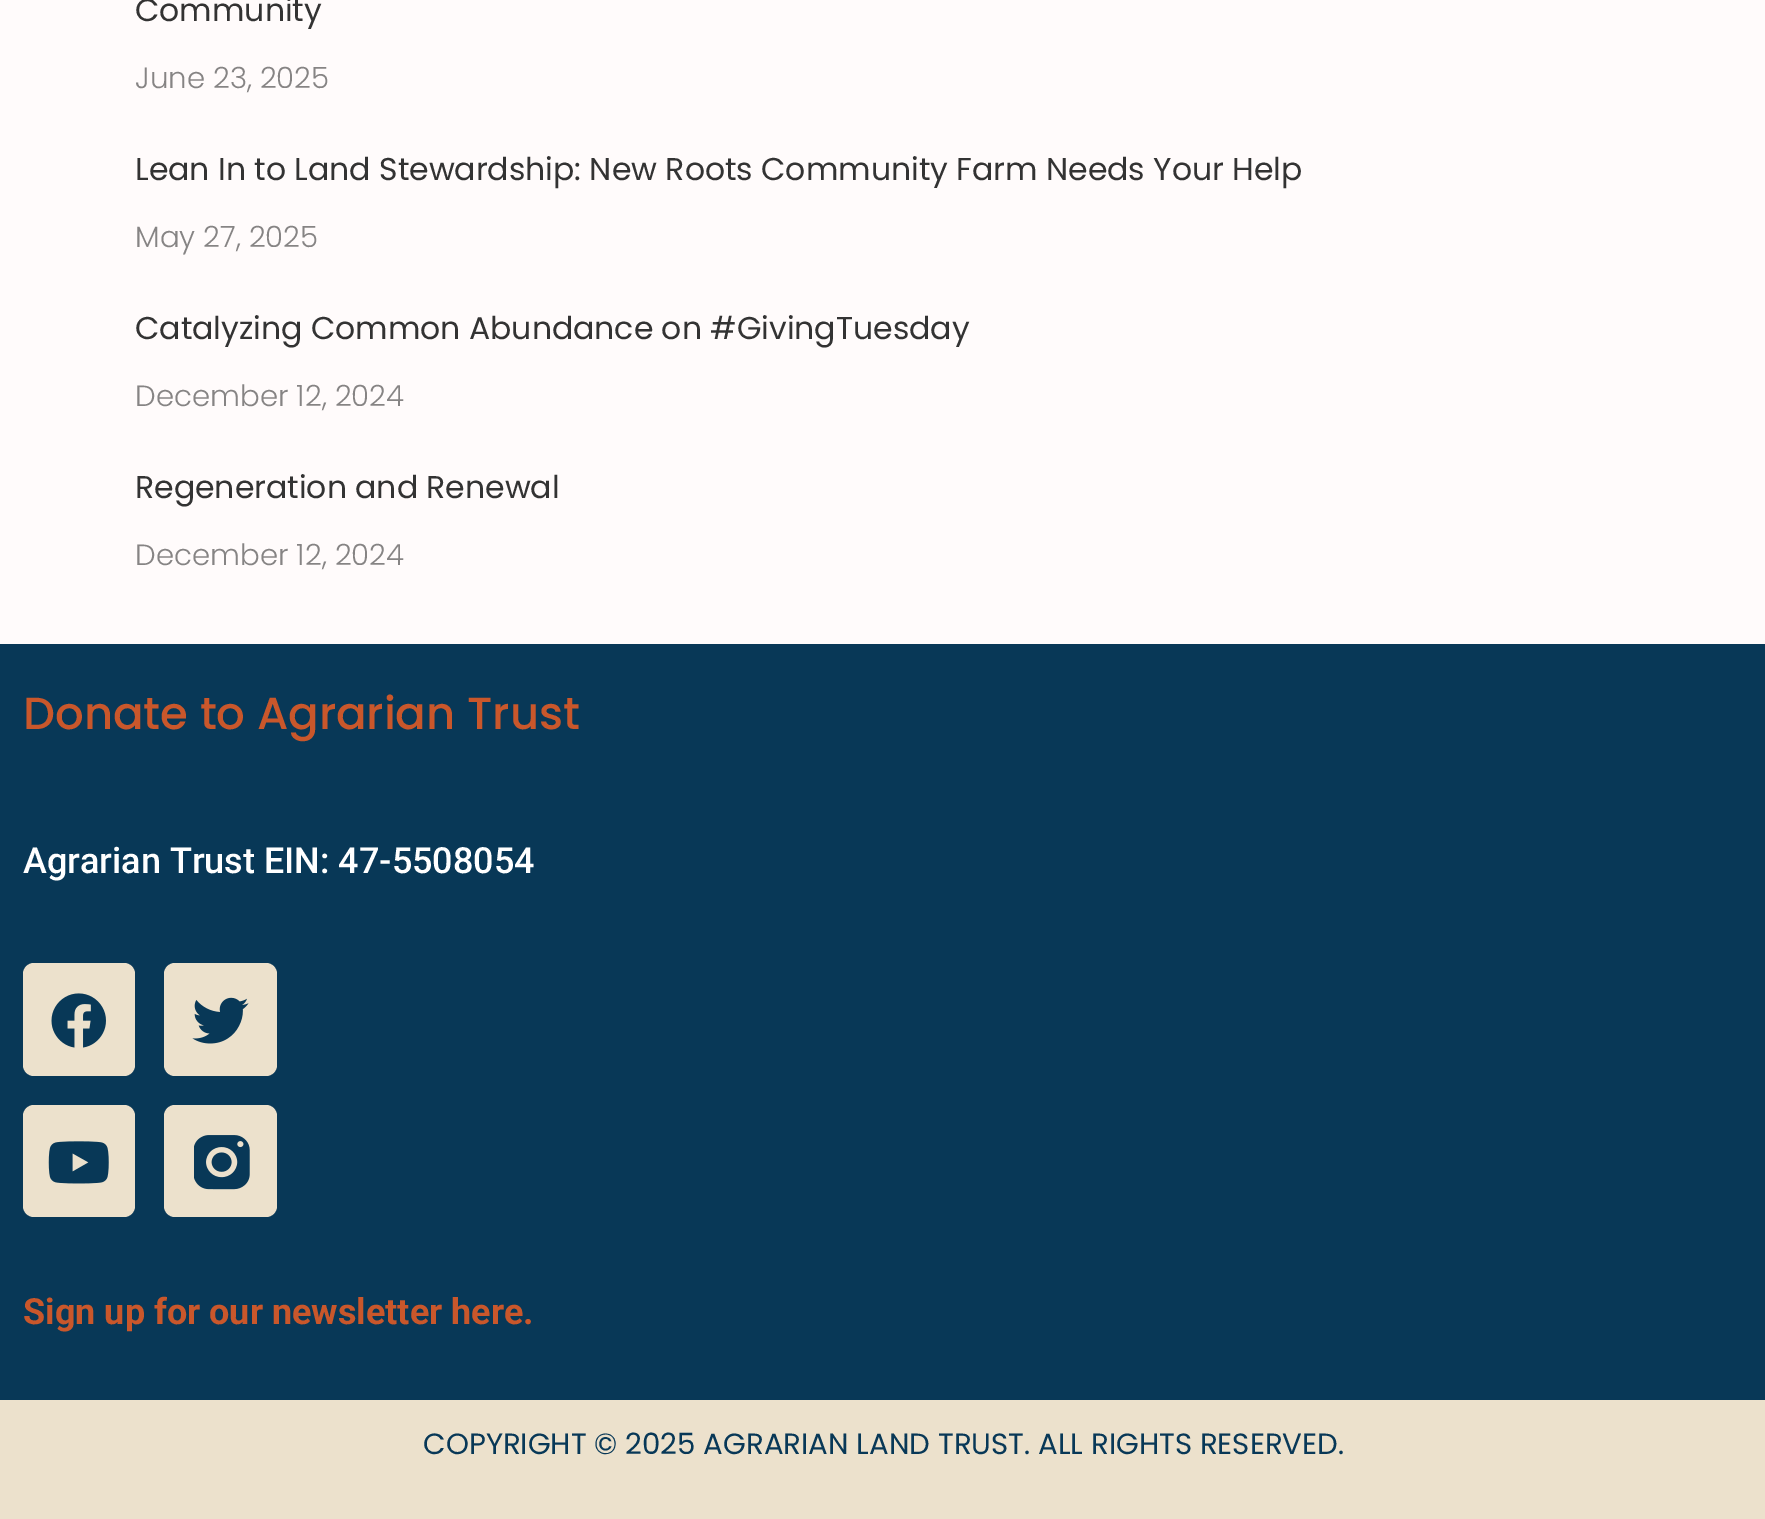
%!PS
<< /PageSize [1765 1519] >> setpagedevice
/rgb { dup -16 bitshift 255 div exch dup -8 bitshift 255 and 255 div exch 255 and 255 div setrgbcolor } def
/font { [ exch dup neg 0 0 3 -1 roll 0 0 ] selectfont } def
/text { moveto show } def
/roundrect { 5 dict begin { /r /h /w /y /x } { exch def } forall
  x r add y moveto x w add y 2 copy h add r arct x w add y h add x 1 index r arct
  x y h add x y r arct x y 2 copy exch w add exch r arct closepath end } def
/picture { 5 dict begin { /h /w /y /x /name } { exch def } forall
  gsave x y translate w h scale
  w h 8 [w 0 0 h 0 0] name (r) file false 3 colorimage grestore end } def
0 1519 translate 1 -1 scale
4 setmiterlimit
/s1 { /Poppins-Regular 31.5 font 16#333333 rgb } def
/s2 { /Poppins-Light 29.25 font 16#868484 rgb } def
/s3 { /Poppins-Medium 45 font 16#C9572B rgb } def
/s4 { /Roboto-Medium 36 font 16#FFFFFF rgb } def
/s5 { /Roboto-Bold 36 font 16#C9572B rgb } def
/s6 { /Poppins-Regular 29.25 font 16#083857 rgb } def
16#FFFBFB rgb
0 0 1765 1519 rectfill
s1
(Community) 135 21 text
s2
(June 23, 2025) 135 88 text
s1
(Lean In to Land Stewardship: New Roots Community Farm Needs Your Help) 135 180 text
s2
(May 27, 2025) 135 247 text
s1
(Catalyzing Common Abundance on #GivingTuesday) 135 339 text
s2
(December 12, 2024) 135 406 text
s1
(Regeneration and Renewal) 135 498 text
s2
(December 12, 2024) 135 565 text
16#083857 rgb
0 644 1765 756 rectfill
s3
(Donate to Agrarian Trust) 23 729 text
s4
(Agrarian Trust EIN: 47-5508054) 23 873 text
16#ECE1CC rgb
23 963 112 113 11 roundrect fill
(pic1.raw) 51 993 55 55 picture
164 963 113 113 11 roundrect fill
(pic2.raw) 192 997 57 47 picture
23 1105 112 112 11 roundrect fill
(pic3.raw) 48 1141 61 43 picture
164 1105 113 112 11 roundrect fill
(pic4.raw) 194 1135 56 55 picture
s5
(Sign up for our newsletter here.) 23 1324 text
16#ECE1CC rgb
0 1400 1765 119 rectfill
s6
(COPYRIGHT © 2025 AGRARIAN LAND TRUST. ALL RIGHTS RESERVED.) 423 1454 text
showpage
